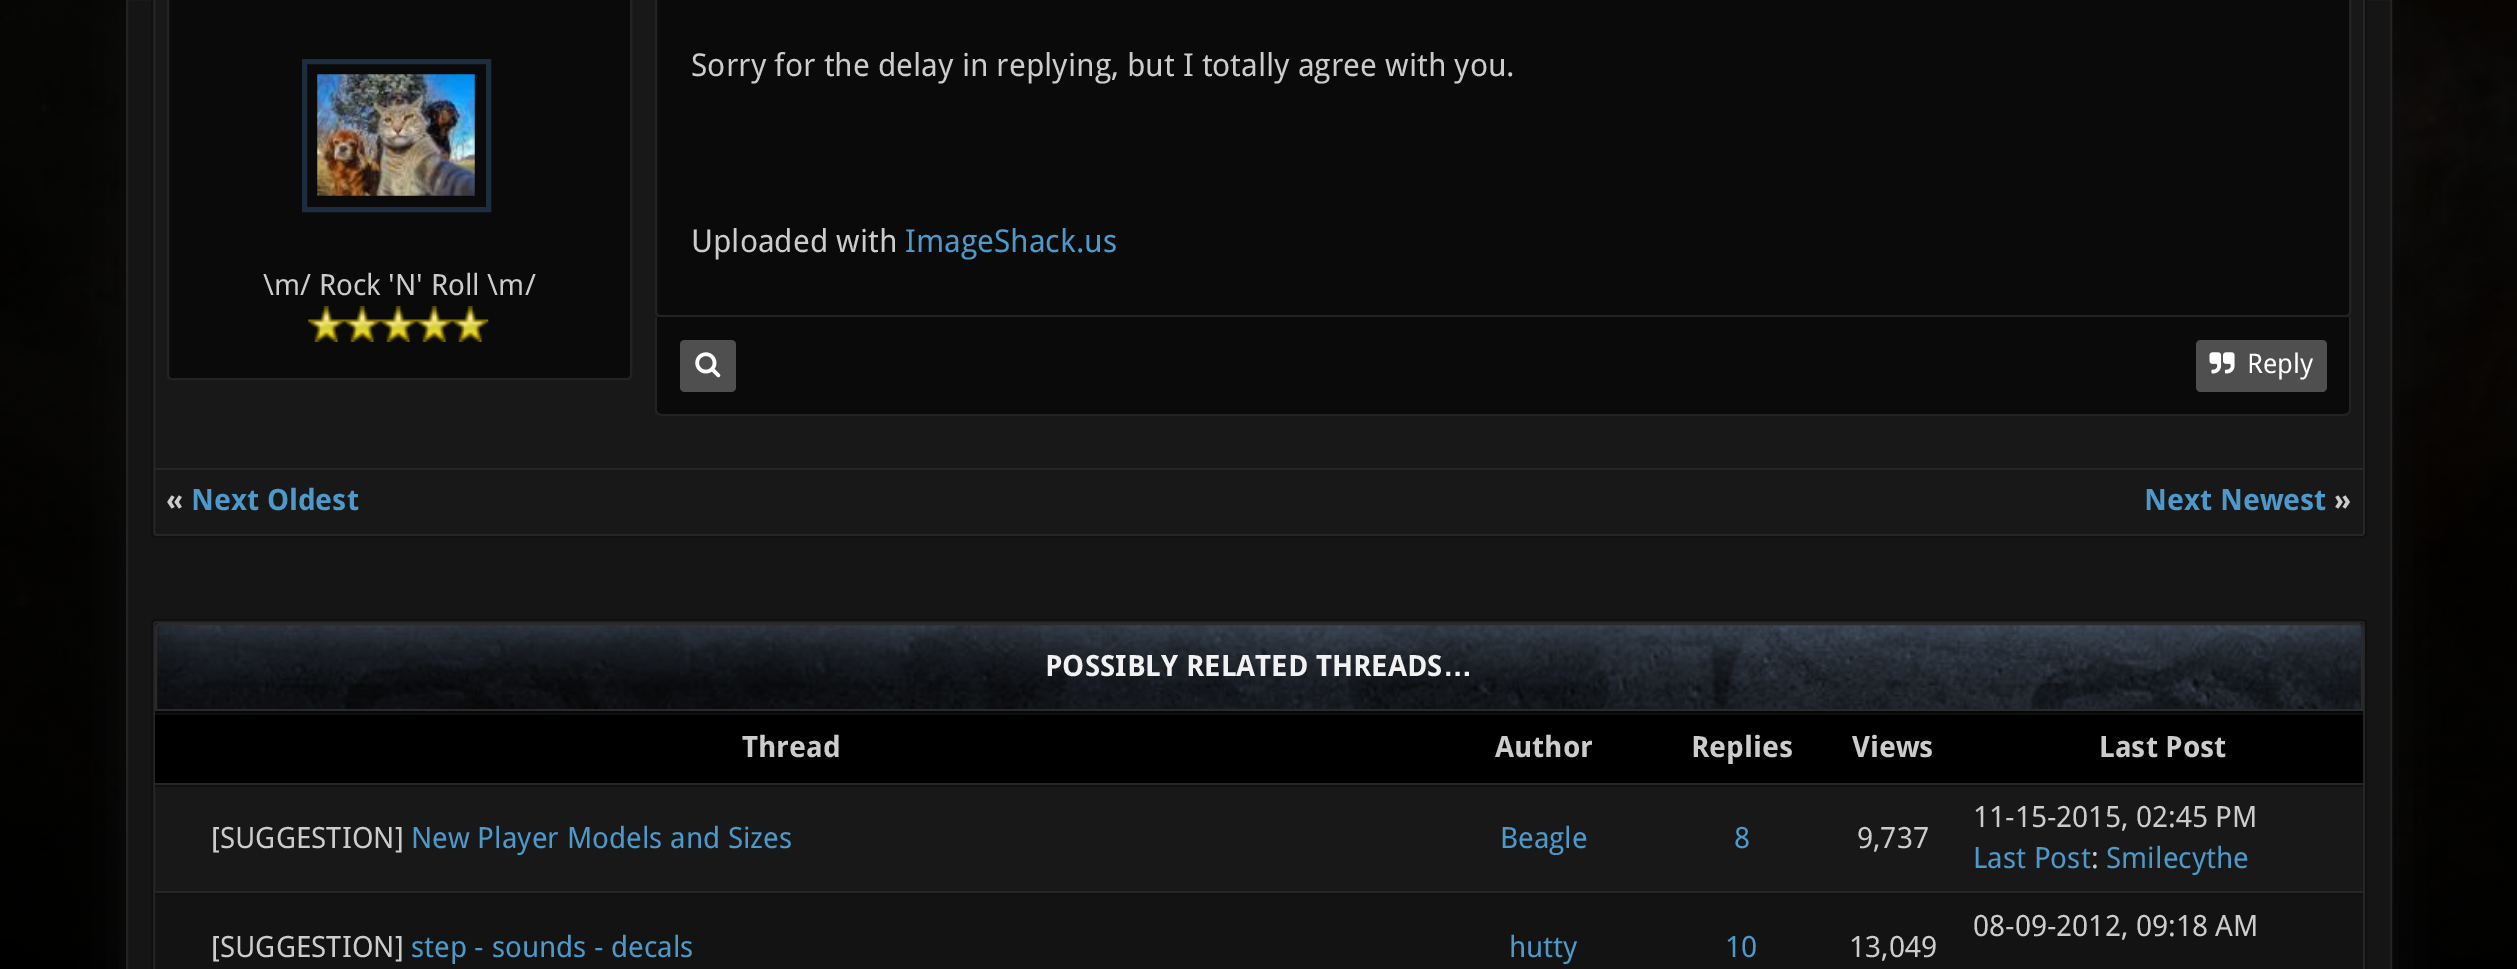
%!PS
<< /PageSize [2517 969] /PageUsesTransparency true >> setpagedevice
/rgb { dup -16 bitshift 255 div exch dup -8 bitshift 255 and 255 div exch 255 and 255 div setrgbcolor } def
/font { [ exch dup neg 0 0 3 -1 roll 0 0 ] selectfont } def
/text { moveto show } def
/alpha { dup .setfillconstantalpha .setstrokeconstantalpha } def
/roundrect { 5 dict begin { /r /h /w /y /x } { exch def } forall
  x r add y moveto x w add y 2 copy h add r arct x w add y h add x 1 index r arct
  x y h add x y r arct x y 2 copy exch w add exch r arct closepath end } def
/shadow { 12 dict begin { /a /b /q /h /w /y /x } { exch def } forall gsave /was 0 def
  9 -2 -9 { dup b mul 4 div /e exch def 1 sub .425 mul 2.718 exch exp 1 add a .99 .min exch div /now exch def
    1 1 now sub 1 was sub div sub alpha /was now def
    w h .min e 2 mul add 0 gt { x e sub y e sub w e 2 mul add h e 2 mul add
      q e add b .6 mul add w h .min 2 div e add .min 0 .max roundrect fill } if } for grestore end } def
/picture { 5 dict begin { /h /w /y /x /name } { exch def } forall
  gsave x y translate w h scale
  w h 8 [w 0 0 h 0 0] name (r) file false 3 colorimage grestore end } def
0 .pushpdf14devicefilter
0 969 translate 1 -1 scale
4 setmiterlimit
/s1 { /DroidSans-Regular 29.25 font 16#CCCCCC rgb } def
/s2 { /DroidSans-Regular 31.5 font 16#CCCCCC rgb } def
/s3 { /DroidSans-Regular 31.5 font 16#4D99C9 rgb } def
/s4 { /DroidSans-Regular 27 font 16#FFFFFF rgb } def
/s5 { /DroidSans-Bold 29.25 font 16#CCCCCC rgb } def
/s6 { /DroidSans-Bold 29.25 font 16#4D99C9 rgb } def
/s7 { /DroidSans-Bold 29.25 font 16#F1F1F1 rgb } def
/s8 { /LiberationSans-Bold 29.25 font 16#F1F1F1 rgb } def
/s9 { /DroidSans-Regular 29.25 font 16#4D99C9 rgb } def
16#000000 rgb
0 0 2517 969 rectfill
(pic1.raw) 0 0 2517 959 picture
16#0D0D0D rgb
126 -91 2266 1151 7 28 1 shadow
16#151515 rgb
127 -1 moveto 2391 -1 lineto 2391 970 lineto 127 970 lineto closepath gsave fill grestore
16#232323 rgb
2 setlinewidth
stroke
16#181818 rgb
154 -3 2210 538 1 roundrect gsave fill grestore
16#262626 rgb
stroke
16#101010 rgb
152 -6 2214 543 4 roundrect stroke
16#0A0A0A rgb
168 -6 463 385 4 roundrect gsave fill grestore
16#232323 rgb
stroke
16#1D2D3D rgb
5 setlinewidth
304.5 61.5 184 148 rectstroke
(pic2.raw) 317 74 158 122 picture
s1
(\\m/ Rock 'N' Roll \\m/) 263 295 text
(pic3.raw) 308 306 37 36 picture
(pic4.raw) 344 306 37 36 picture
(pic4.raw) 380 306 37 36 picture
(pic5.raw) 416 306 37 36 picture
(pic5.raw) 452 306 37 36 picture
16#0A0A0A rgb
656 -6 1694 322 4 roundrect gsave fill grestore
16#232323 rgb
2 setlinewidth
stroke
s2
(Sorry for the delay in replying, but I totally agree with you.) 691 76 text
(Uploaded with) 691 252 text
s3
(ImageShack.us) 905 252 text
16#0A0A0A rgb
655 317 moveto 2351 317 lineto 2351 409 lineto 2351 413 2348 416 2344 416 curveto 662 416 lineto 658 416 655 413 655 409 curveto closepath fill
16#232323 rgb
655 317 moveto 2351 317 lineto 2351 410 lineto 2351 413 2348 416 2344 416 curveto 662 416 lineto 658 416 655 413 655 410 curveto closepath 657 317 moveto 2349 317 lineto 2349 410 lineto 2349 412 2347 414 2344 414 curveto 662 414 lineto 659 414 657 412 657 410 curveto closepath eofill
16#4F4F4F rgb
685 340 moveto 731 340 lineto 734 340 736 342 736 345 curveto 736 387 lineto 736 390 734 392 731 392 curveto 685 392 lineto 682 392 680 390 680 387 curveto 680 345 lineto 680 342 682 340 685 340 curveto closepath fill
(pic6.raw) 695 352 26 26 picture
2201 340 moveto 2322 340 lineto 2325 340 2327 342 2327 345 curveto 2327 387 lineto 2327 390 2325 392 2322 392 curveto 2201 392 lineto 2198 392 2196 390 2196 387 curveto 2196 345 lineto 2196 342 2198 340 2201 340 curveto closepath fill
(pic7.raw) 2209 352 26 22 picture
s4
(Reply) 2247 373 text
16#262626 rgb
155 468 2208 2 rectfill
s5
(«) 166 510 text
s6
(Next Oldest) 191 510 text
(Next Newest) 2144 510 text
s5
(») 2334 510 text
16#181818 rgb
154 622 2210 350 1 roundrect gsave fill grestore
16#262626 rgb
stroke
16#101010 rgb
152 620 2214 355 4 roundrect stroke
(pic8.raw) 155 623 2208 86 picture
16#2A2A2A rgb
160 624 moveto 2358 624 lineto 2360 624 2362 626 2362 628 curveto 2362 710 lineto 156 710 lineto 156 628 lineto 156 626 158 624 160 624 curveto closepath stroke
16#070707 rgb
155 711 2208 2 rectfill
s7
(POSSIBLY RELATED THREADS) 1045 676 text
s8
(…) 1443 676 text
16#000000 rgb
155 715 2208 68 rectfill
16#101010 rgb
155 713 2208 2 rectfill
16#262626 rgb
155 783 2208 2 rectfill
s5
(Thread) 742 757 text
(Author) 1495 757 text
(Replies) 1691 757 text
(Views) 1852 757 text
(Last Post) 2099 757 text
16#101010 rgb
155 785 2208 2 rectfill
16#262626 rgb
155 891 2208 2 rectfill
s1
([SUGGESTION]) 211 848 text
s9
(New Player Models and Sizes) 411 848 text
(Beagle) 1500 848 text
(8) 1734 848 text
s1
(9,737) 1857 848 text
(11-15-2015, 02:45 PM) 1973 827 text
s9
(Last Post) 1973 868 text
s1
(:) 2091 868 text
s9
(Smilecythe) 2106 868 text
16#131313 rgb
155 895 2208 74 rectfill
16#101010 rgb
155 893 2208 2 rectfill
s1
(08-09-2012, 09:18 AM) 1973 936 text
([SUGGESTION]) 211 957 text
s9
(step - sounds - decals) 411 957 text
(hutty) 1509 957 text
(10) 1725 957 text
s1
(13,049) 1849 957 text
.poppdf14devicefilter showpage
